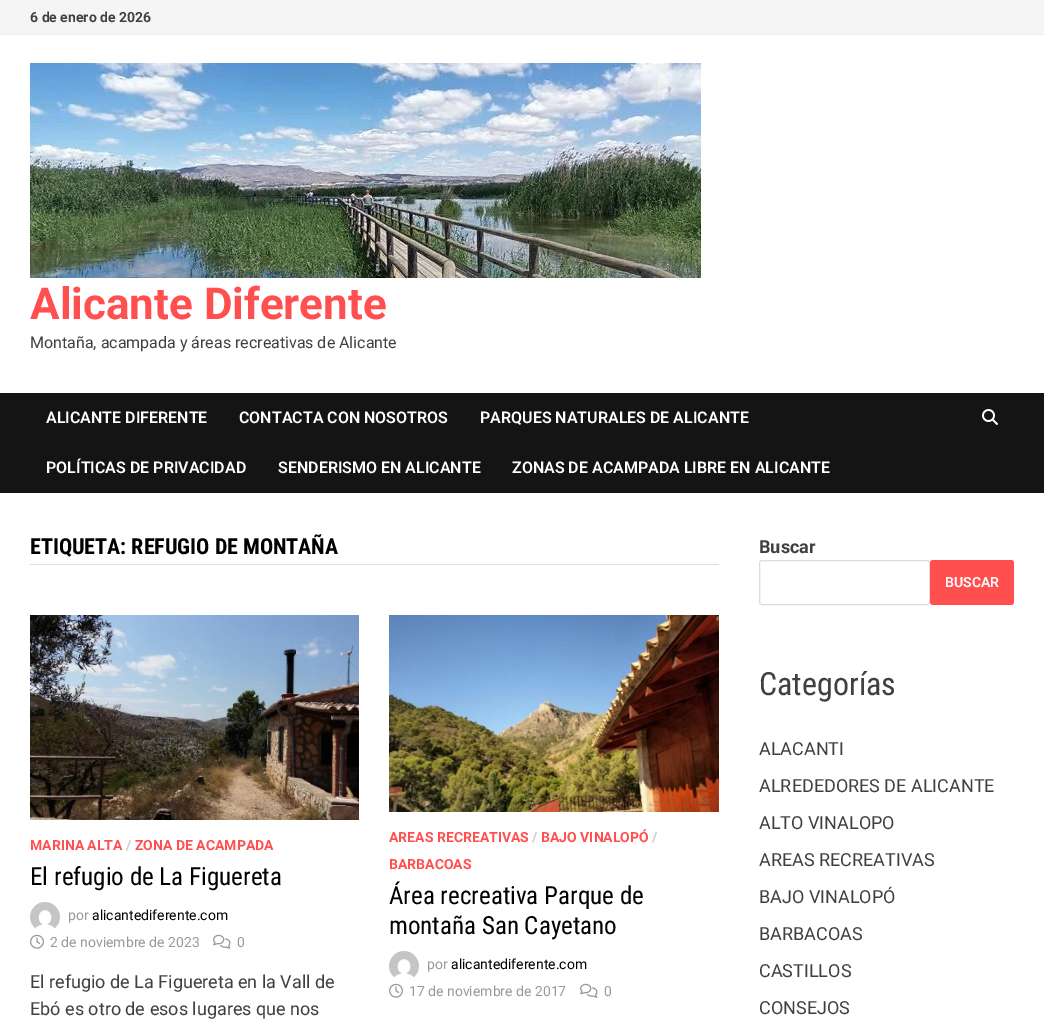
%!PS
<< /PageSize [1044 1026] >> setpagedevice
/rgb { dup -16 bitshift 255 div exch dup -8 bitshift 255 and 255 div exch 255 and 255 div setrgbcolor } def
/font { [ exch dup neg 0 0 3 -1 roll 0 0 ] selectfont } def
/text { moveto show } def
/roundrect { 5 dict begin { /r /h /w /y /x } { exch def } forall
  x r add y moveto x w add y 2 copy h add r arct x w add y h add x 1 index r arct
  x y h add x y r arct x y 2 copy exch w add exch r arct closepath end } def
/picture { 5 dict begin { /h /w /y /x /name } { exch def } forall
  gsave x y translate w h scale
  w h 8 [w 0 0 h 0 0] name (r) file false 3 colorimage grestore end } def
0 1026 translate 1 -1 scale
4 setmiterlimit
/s1 { /Roboto-Bold 14 font 16#404040 rgb } def
/s2 { /Roboto-Bold 44 font 16#FF4F4F rgb } def
/s3 { /Roboto-Regular 16 font 16#404040 rgb } def
/s4 { /Roboto-SemiBold 16 font 16#FFFFFF rgb } def
/s5 { /RobotoCondensed-Bold 22 font 16#000000 rgb } def
/s6 { /Roboto-Bold 14 font 16#FF4F4F rgb } def
/s7 { /Roboto-Bold 14 font 16#CCCCCC rgb } def
/s8 { /RobotoCondensed-Regular 25 font 16#000000 rgb } def
/s9 { /Roboto-Regular 14 font 16#999999 rgb } def
/s10 { /Roboto-Regular 14 font 16#000000 rgb } def
/s11 { /Roboto-Regular 18 font 16#404040 rgb } def
/s12 { /Roboto-Bold 18 font 16#404040 rgb } def
/s13 { /Roboto-SemiBold 14 font 16#FFFFFF rgb } def
/s14 { /RobotoCondensed-Regular 32 font 16#404040 rgb } def
16#FFFFFF rgb
0 0 1044 1026 rectfill
16#F5F5F5 rgb
0 0 1044 34 rectfill
16#EEEEEE rgb
0 34 1044 1 rectfill
s1
(6 de enero de 2026) 30 22 text
(pic1.raw) 30 63 671 215 picture
s2
(Alicante Diferente) 30 319 text
s3
(Montaña, acampada y áreas recreativas de Alicante) 30 348 text
16#141414 rgb
0 393 1044 100 rectfill
s4
(ALICANTE DIFERENTE) 46 423 text
(CONTACTA CON NOSOTROS) 239 423 text
(PARQUES NATURALES DE ALICANTE) 480 423 text
(POLÍTICAS DE PRIVACIDAD) 46 473 text
(SENDERISMO EN ALICANTE) 278 473 text
(ZONAS DE ACAMPADA LIBRE EN ALICANTE) 512 473 text
(pic2.raw) 982 409 16 16 picture
16#DDDDDD rgb
30 564 689 1 rectfill
s5
(ETIQUETA: REFUGIO DE MONTAÑA) 30 554 text
(pic3.raw) 30 615 329 205 picture
s6
(MARINA ALTA) 30 850 text
s7
(/) 126 850 text
s6
(ZONA DE ACAMPADA) 135 850 text
s8
(El refugio de La Figuereta) 30 885 text
(pic4.raw) 30 902 30 27 picture
s9
(por) 68 920 text
s10
(alicantediferente.com) 92 920 text
(pic5.raw) 30 934 14 15 picture
s9
(2 de noviembre de 2023) 50 947 text
(pic6.raw) 213 934 18 15 picture
(0) 237 947 text
s11
(El refugio de La Figuereta en la Vall de) 30 988 text
(Ebó es otro de esos lugares que nos) 30 1015 text
(pic7.raw) 389 615 330 197 picture
s6
(AREAS RECREATIVAS) 389 842 text
s7
(/) 532 842 text
s6
(BAJO VINALOPÓ) 541 842 text
s7
(/) 652 842 text
s6
(BARBACOAS) 389 869 text
s8
(Área recreativa Parque de) 389 904 text
(montaña San Cayetano) 389 934 text
(pic8.raw) 389 951 30 27 picture
s9
(por) 427 969 text
s10
(alicantediferente.com) 451 969 text
(pic5.raw) 389 983 14 15 picture
s9
(17 de noviembre de 2017) 409 996 text
(pic6.raw) 580 983 18 15 picture
(0) 604 996 text
s12
(Buscar) 759 553 text
16#DDDDDD rgb
759.5 560.5 170 44 2.5 roundrect stroke
16#FF4F4F rgb
930 560 84 45 3 roundrect fill
s13
(BUSCAR) 945 587 text
s14
(Categorías) 759 695 text
s11
(ALACANTI) 759 755 text
(ALREDEDORES DE ALICANTE) 759 792 text
(ALTO VINALOPO) 759 829 text
(AREAS RECREATIVAS) 759 866 text
(BAJO VINALOPÓ) 759 903 text
(BARBACOAS) 759 940 text
(CASTILLOS) 759 977 text
(CONSEJOS) 759 1014 text
showpage
